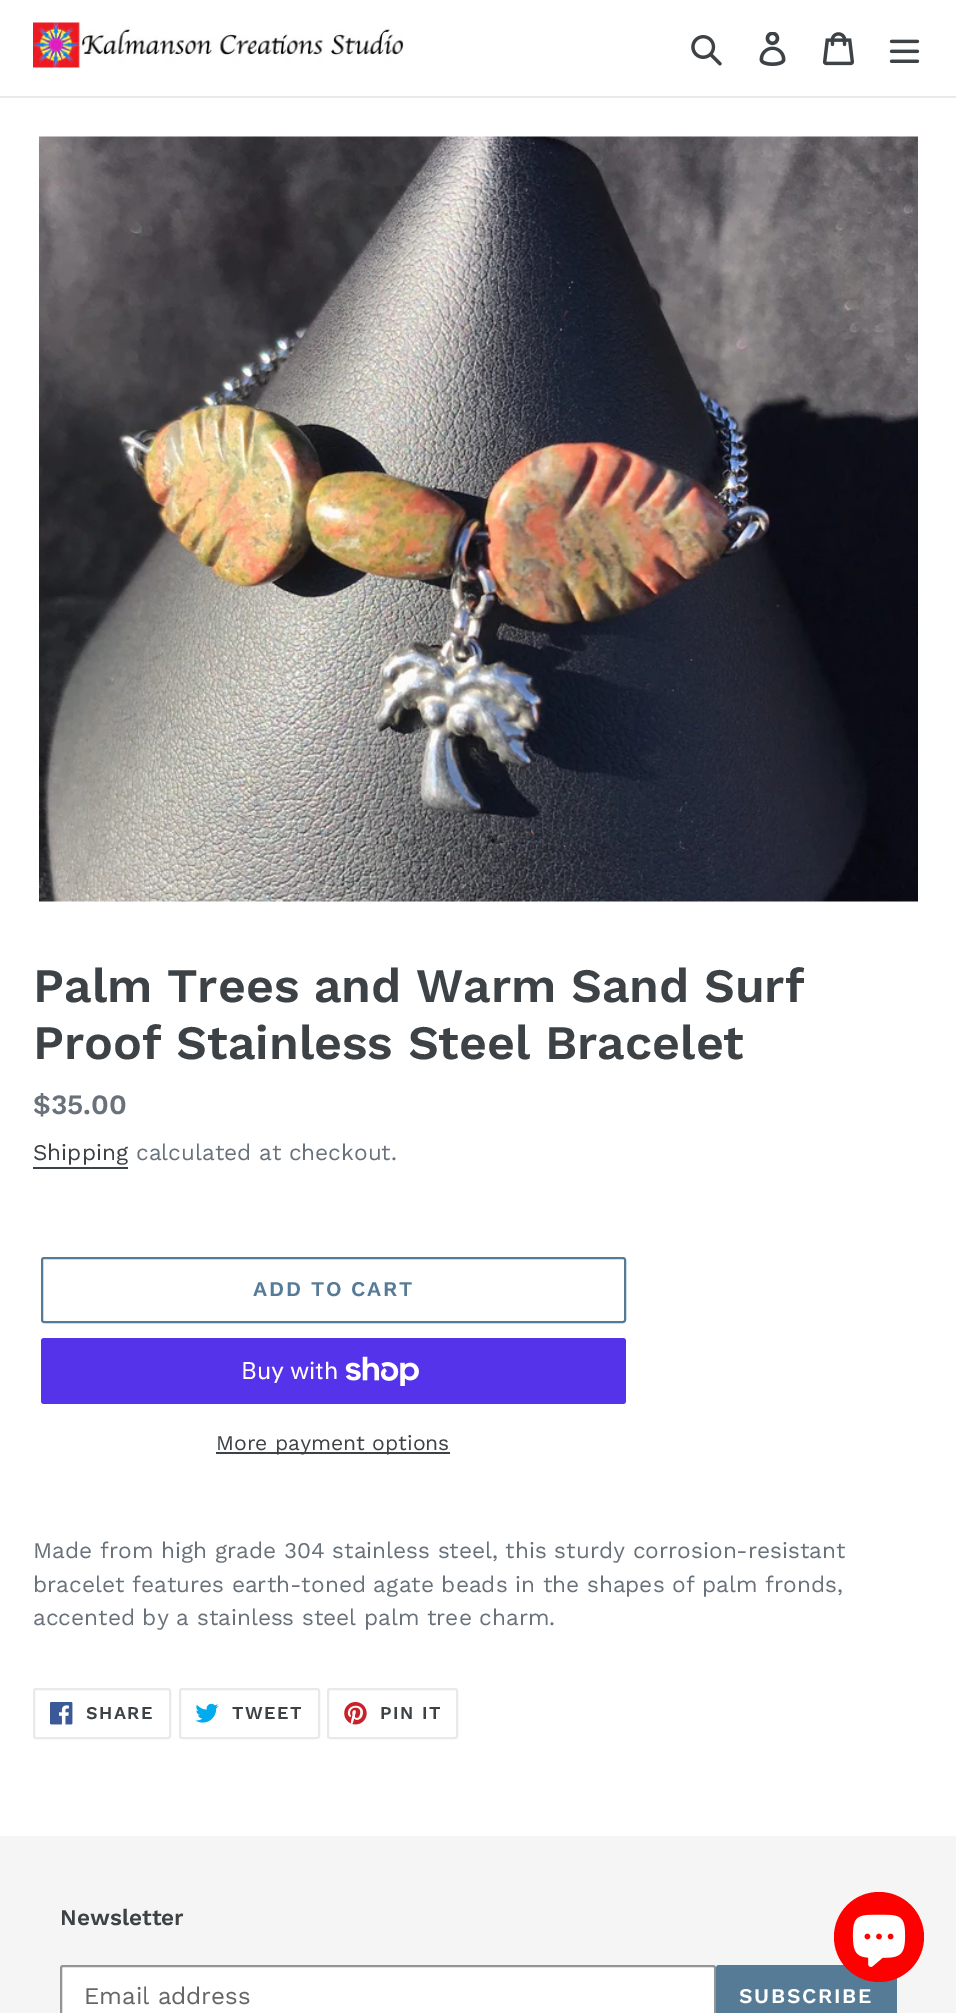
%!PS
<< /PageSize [956 2013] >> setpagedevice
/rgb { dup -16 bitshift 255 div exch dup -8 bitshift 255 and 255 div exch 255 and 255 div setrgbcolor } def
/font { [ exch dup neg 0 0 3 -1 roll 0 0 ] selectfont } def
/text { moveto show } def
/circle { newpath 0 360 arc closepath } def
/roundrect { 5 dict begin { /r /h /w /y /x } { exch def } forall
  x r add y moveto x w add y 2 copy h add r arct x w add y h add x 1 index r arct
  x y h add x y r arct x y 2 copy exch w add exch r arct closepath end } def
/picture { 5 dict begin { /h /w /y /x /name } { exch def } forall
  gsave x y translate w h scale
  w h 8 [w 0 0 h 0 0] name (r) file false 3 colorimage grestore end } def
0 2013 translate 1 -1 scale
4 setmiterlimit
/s1 { /WorkSans-SemiBold 48 font 16#3D4246 rgb } def
/s2 { /WorkSans-SemiBold 28 font 16#69727B rgb } def
/s3 { /WorkSans-Regular 22.5 font 16#3D4246 rgb } def
/s4 { /WorkSans-Regular 22.5 font 16#69727B rgb } def
/s5 { /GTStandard-Regular 24 font 16#FFFFFF rgb } def
/s6 { /WorkSans-Regular 21 font 16#3D4246 rgb } def
/s7 { /WorkSans-SemiBold 22.5 font 16#3D4246 rgb } def
/s8 { /WorkSans-Regular 24 font 16#666666 rgb } def
16#FFFFFF rgb
0 0 956 2013 rectfill
16#E8E9EB rgb
0 96 956 2 rectfill
(pic1.raw) 33 22 371 46 picture
(pic2.raw) 691 35 31 31 picture
(pic3.raw) 759 32 27 34 picture
(pic4.raw) 823 32 31 34 picture
(pic5.raw) 889 39 31 24 picture
(pic6.raw) 39 136 879 766 picture
s1
(Palm Trees and Warm Sand Surf) 33 1002 text
(Proof Stainless Steel Bracelet) 33 1059 text
s2
($35.00) 33 1114 text
s3
(Shipping) 33 1160 text
33 1167 95 2 rectfill
s4
(calculated at checkout.) 136 1160 text
16#557B97 rgb
2 setlinewidth
42 1258 583 64 2 roundrect stroke
/WorkSans-SemiBold 21 font
253 1296 moveto 1.75 0 (ADD TO CART) ashow
16#5433EB rgb
41 1338 585 66 3 roundrect fill
s5
(Buy with) 241 1379 text
(pic7.raw) 345 1356 74 30 picture
16#3D4246 rgb
216 1452 234 2 rectfill
s6
(More payment options) 216 1450 text
s4
(Made from high grade 304 stainless steel, this sturdy corrosion-resistant) 33 1558 text
(bracelet features earth-toned agate beads in the shapes of palm fronds,) 33 1592 text
(accented by a stainless steel palm tree charm.) 33 1625 text
16#E8E9EB rgb
34 1689 136 49 2 roundrect stroke
(pic8.raw) 50 1702 23 23 picture
/WorkSans-SemiBold 18 font
16#3D4246 rgb
86 1719 moveto 1.5 0 (SHARE) ashow
16#E8E9EB rgb
180 1689 139 49 2 roundrect stroke
(pic9.raw) 195 1703 24 20 picture
16#3D4246 rgb
232 1719 moveto 1.5 0 (TWEET) ashow
16#E8E9EB rgb
328 1689 129 49 2 roundrect stroke
(pic10.raw) 344 1702 23 23 picture
16#3D4246 rgb
380 1719 moveto 1.5 0 (PIN IT) ashow
16#F5F5F5 rgb
0 1836 956 177 rectfill
s7
(Newsletter) 60 1925 text
16#FFFFFF rgb
61 1966 654 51 2 roundrect gsave fill grestore
16#949494 rgb
stroke
s8
(Email address) 84 2004 text
16#557B97 rgb
716 1965 181 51 3 roundrect fill
/WorkSans-SemiBold 21 font
16#FFFFFF rgb
739 2003 moveto 1.75 0 (SUBSCRIBE) ashow
16#FF0000 rgb
879 1937 45 circle fill
(pic11.raw) 852 1914 54 53 picture
showpage
